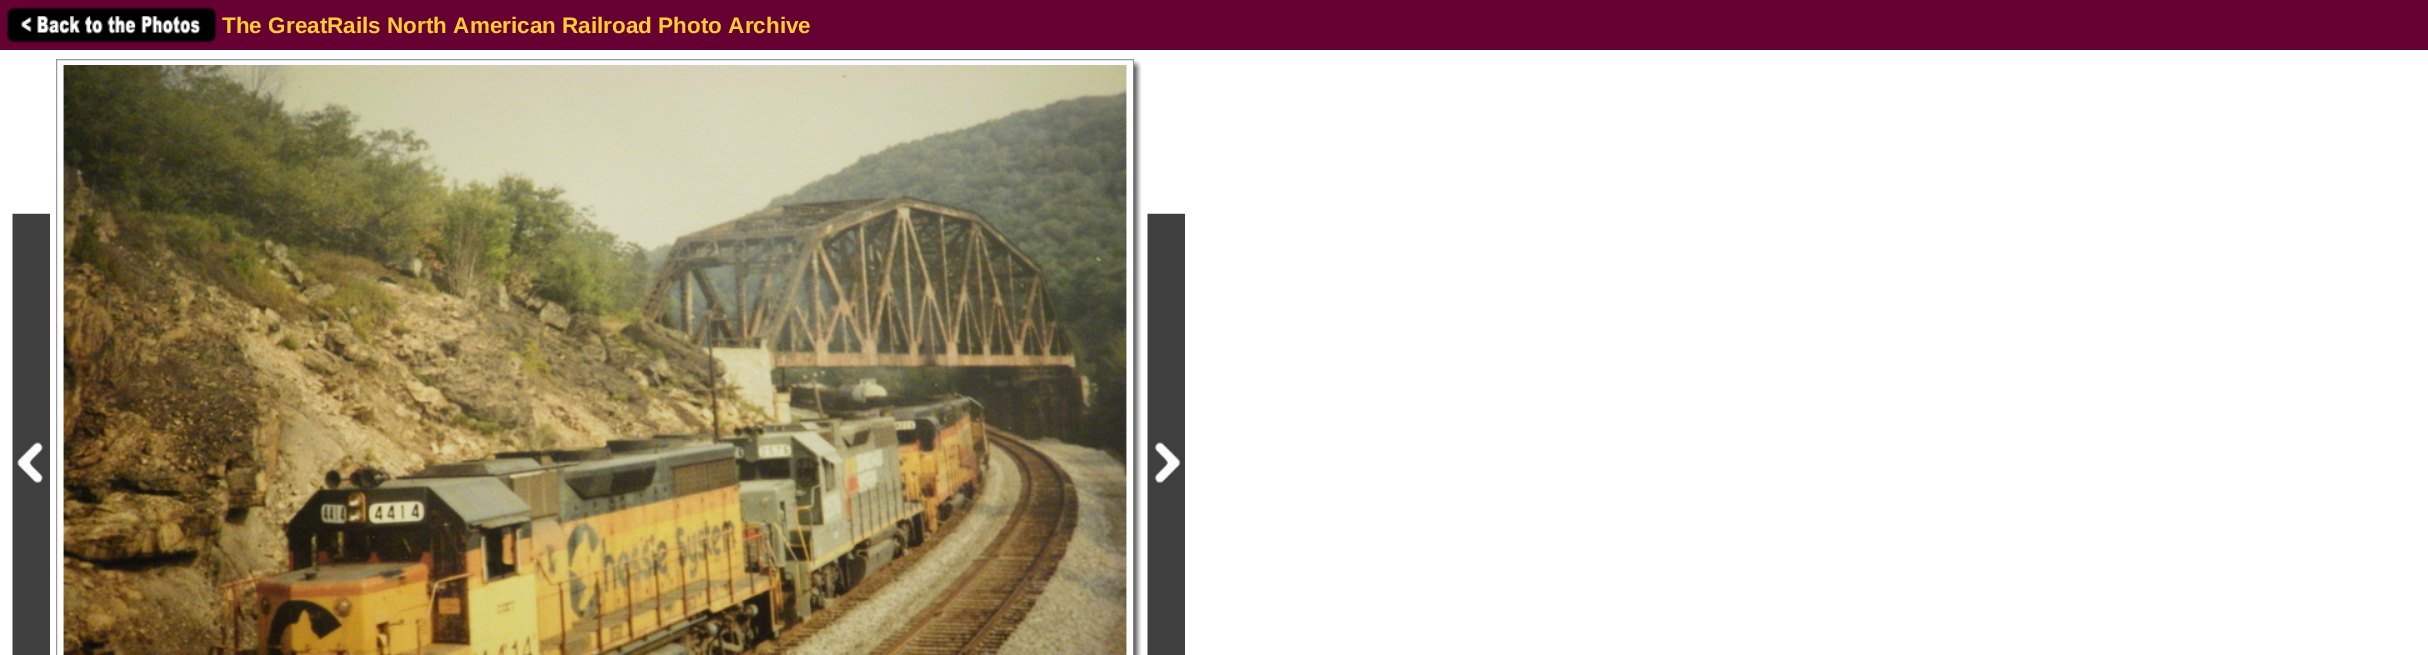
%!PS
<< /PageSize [2428 655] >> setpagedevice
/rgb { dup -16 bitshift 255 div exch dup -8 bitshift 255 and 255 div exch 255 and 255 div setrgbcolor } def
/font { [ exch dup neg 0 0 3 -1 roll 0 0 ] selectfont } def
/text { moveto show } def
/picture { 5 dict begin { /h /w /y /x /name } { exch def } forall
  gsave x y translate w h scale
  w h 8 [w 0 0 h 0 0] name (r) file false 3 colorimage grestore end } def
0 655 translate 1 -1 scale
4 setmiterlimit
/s1 { /LiberationSans-Bold 22.5 font 16#FFCC33 rgb } def
16#FFFFFF rgb
0 0 2428 655 rectfill
16#660033 rgb
0 0 2428 50 rectfill
(pic1.raw) 7 7 210 36 picture
s1
(The GreatRails North American Railroad Photo Archive) 222 33 text
(pic2.raw) 12 213 38 442 picture
16#9A9A9A rgb
56.5 59.5 1077 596 rectstroke
(pic3.raw) 63 65 1064 590 picture
(pic4.raw) 63 65 1064 590 picture
(pic5.raw) 1133 59 8 596 picture
(pic6.raw) 1147 213 38 442 picture
showpage
